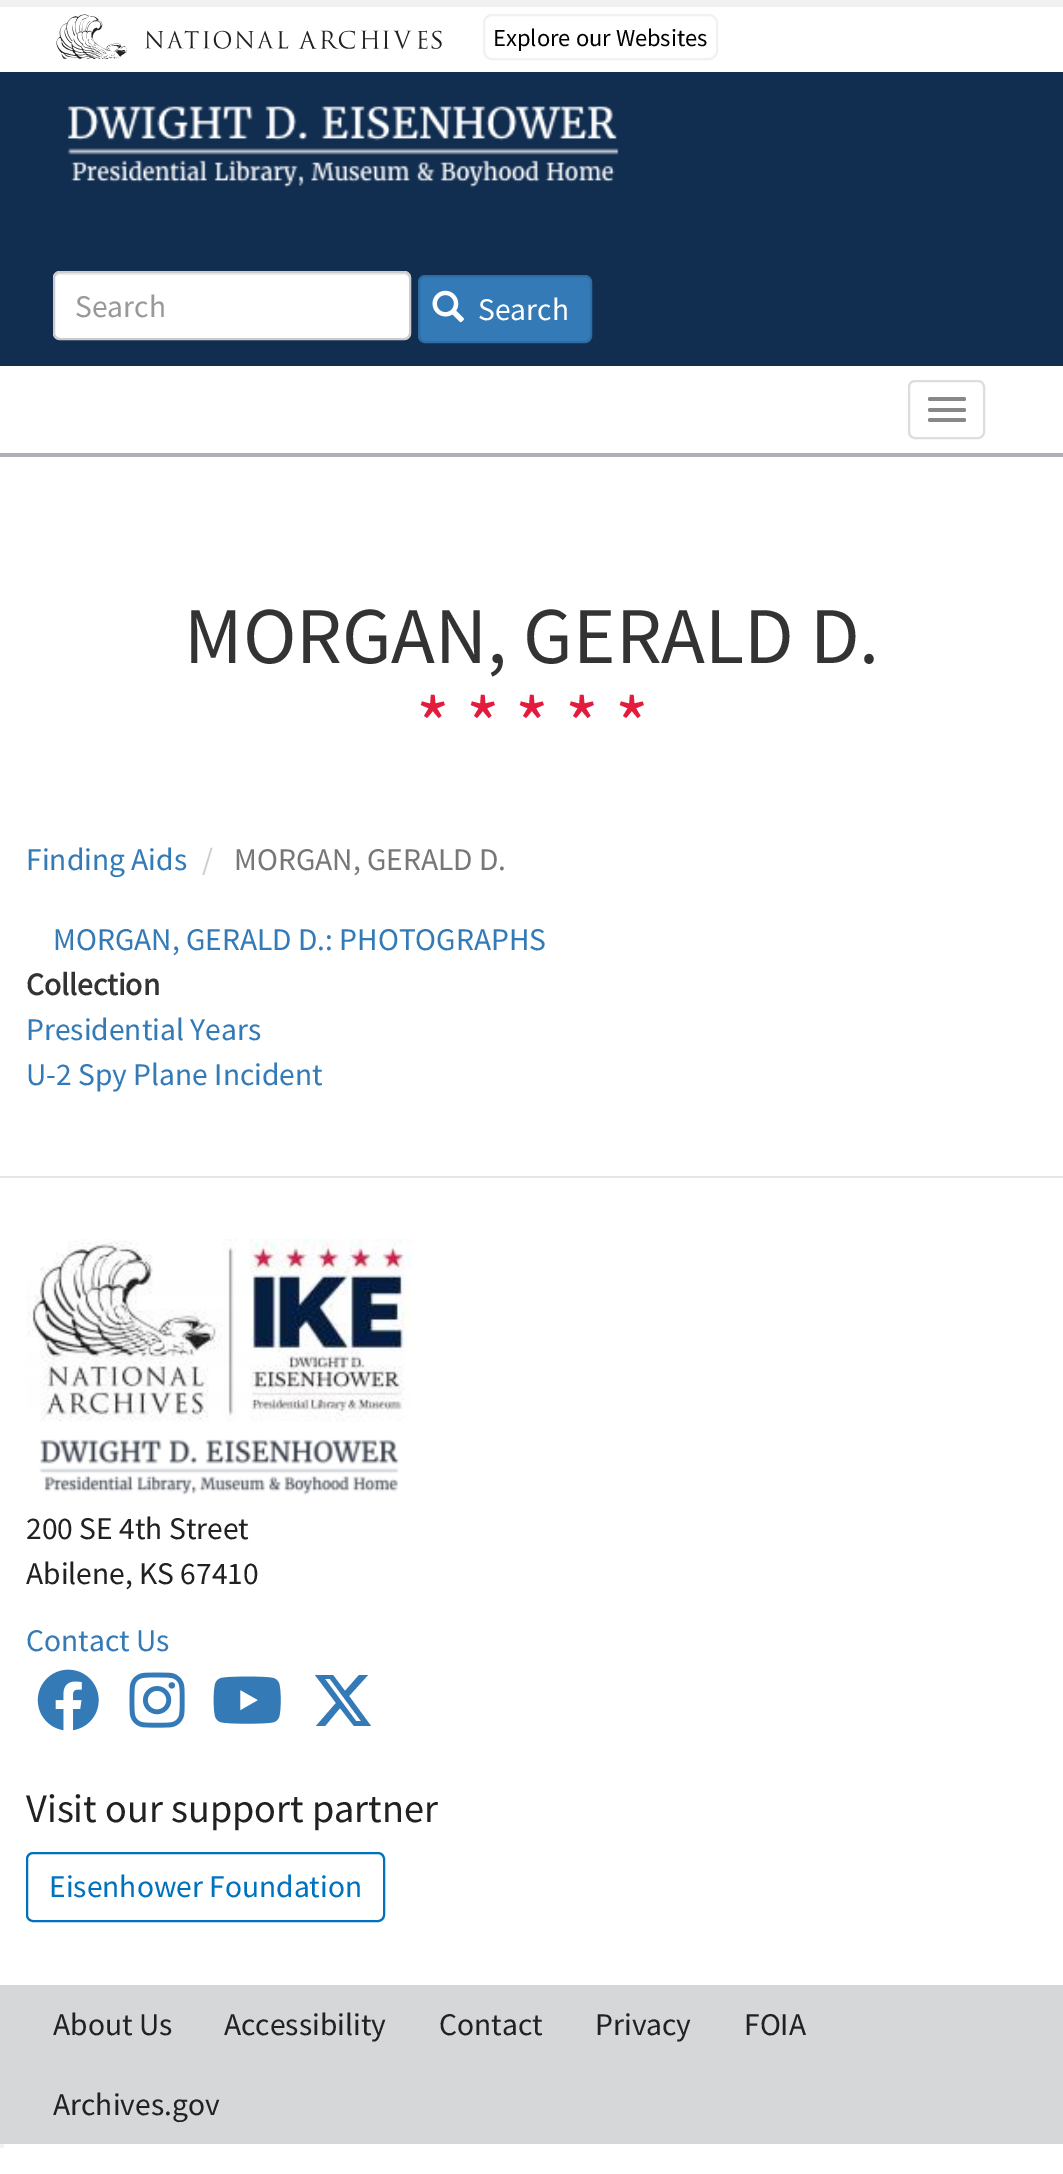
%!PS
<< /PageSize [1063 2174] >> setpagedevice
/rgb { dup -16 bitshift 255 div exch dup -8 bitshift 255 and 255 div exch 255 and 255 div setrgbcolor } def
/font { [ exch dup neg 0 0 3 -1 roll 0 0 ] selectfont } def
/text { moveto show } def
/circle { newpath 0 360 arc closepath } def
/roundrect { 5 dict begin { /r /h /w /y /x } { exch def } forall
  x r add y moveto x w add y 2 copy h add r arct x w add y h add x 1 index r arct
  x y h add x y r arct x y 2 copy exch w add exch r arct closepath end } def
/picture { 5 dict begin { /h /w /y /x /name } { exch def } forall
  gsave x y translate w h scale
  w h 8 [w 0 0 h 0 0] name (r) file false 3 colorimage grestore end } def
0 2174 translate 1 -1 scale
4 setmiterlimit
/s1 { /SourceSansPro-Regular 24.5 font 16#000000 rgb } def
/s2 { /SourceSansPro-Regular 31.5 font 16#999999 rgb } def
/s3 { /SourceSansPro-Regular 31.5 font 16#FFFFFF rgb } def
/s4 { /SourceSansPro-Regular 80.5 font 16#333333 rgb } def
/s5 { /SourceSansPro-Regular 80.5 font 16#E31C3D rgb } def
/s6 { /SourceSansPro-Regular 31.5 font 16#337AB7 rgb } def
/s7 { /SourceSansPro-Regular 31.5 font 16#CCCCCC rgb } def
/s8 { /SourceSansPro-Regular 31.5 font 16#777777 rgb } def
/s9 { /SourceSansPro-Bold 31.5 font 16#333333 rgb } def
/s10 { /SourceSansPro-Regular 31.5 font 16#212121 rgb } def
/s11 { /SourceSansPro-Regular 40.25 font 16#212121 rgb } def
/s12 { /SourceSansPro-Regular 31.5 font 16#0071BC rgb } def
16#FFFFFF rgb
0 0 1063 2174 rectfill
(pic1.raw) 56 14 386 45 picture
16#F1F1F1 rgb
2 setlinewidth
484 15 233 44 8 roundrect stroke
s1
(Explore our Websites) 493 46 text
16#F1F1F1 rgb
0 0 1063 7 rectfill
16#AEB0B5 rgb
0 453 1063 4 rectfill
16#112E51 rgb
0 72 1063 294 rectfill
(pic2.raw) 67 106 552 82 picture
16#FFFFFF rgb
53 271 358 69 7 roundrect fill
16#ECECEC rgb
60 275 moveto 404 275 lineto 407 275 410 277 410 280 curveto 410 277 409 273 405 273 curveto 59 273 lineto 55 273 54 277 54 280 curveto 54 277 57 275 60 275 curveto closepath fill
16#CCCCCC rgb
54 272 356 67 6 roundrect stroke
s2
(Search) 75 317 text
16#337AB7 rgb
419 276 172 66 6 roundrect gsave fill grestore
16#2E6DA4 rgb
stroke
(pic3.raw) 432 290 32 33 picture
s3
(Search) 478 320 text
16#DDDDDD rgb
909 381 75 57 6 roundrect stroke
16#888888 rgb
928 397 38 4 2 roundrect fill
928 408 38 4 2 roundrect fill
928 418 38 4 2 roundrect fill
s4
(MORGAN, GERALD D.) 184 663 text
s5
(* * * * *) 416 752 text
s6
(Finding Aids) 26 870 text
s7
(/) 202 870 text
s8
(MORGAN, GERALD D.) 234 870 text
s6
(MORGAN, GERALD D.: PHOTOGRAPHS) 53 950 text
s9
(Collection) 26 995 text
s6
(Presidential Years) 26 1040 text
(U-2 Spy Plane Incident) 26 1085 text
16#E5E5E5 rgb
0 1176 1063 2 rectfill
(pic4.raw) 26 1239 386 183 picture
(pic5.raw) 39 1439 361 56 picture
s10
(200 SE 4th Street) 26 1539 text
(Abilene, KS 67410) 26 1584 text
s6
(Contact Us) 26 1651 text
(pic6.raw) 37 1669 62 62 picture
(pic7.raw) 129 1672 56 56 picture
(pic8.raw) 213 1676 68 48 picture
359 1675 moveto 368 1675 lineto 349 1696 lineto 371 1726 lineto 354 1726 lineto 340 1708 lineto 325 1726 lineto 316 1726 lineto 336 1703 lineto 315 1675 lineto 333 1675 lineto 345 1691 lineto closepath 356 1721 moveto 361 1721 lineto 330 1679 lineto 325 1679 lineto closepath fill
s11
(Visit our support partner) 26 1822 text
16#0071BC rgb
27 1853 357 68 6 roundrect stroke
s12
(Eisenhower Foundation) 49 1897 text
16#D6D7D9 rgb
0 1985 1063 159 rectfill
s10
(About Us) 53 2035 text
(Accessibility) 224 2035 text
(Contact) 439 2035 text
(Privacy) 595 2035 text
(FOIA) 744 2035 text
(Archives.gov) 53 2115 text
16#F1F1F1 rgb
2 2146 2 circle fill
showpage
